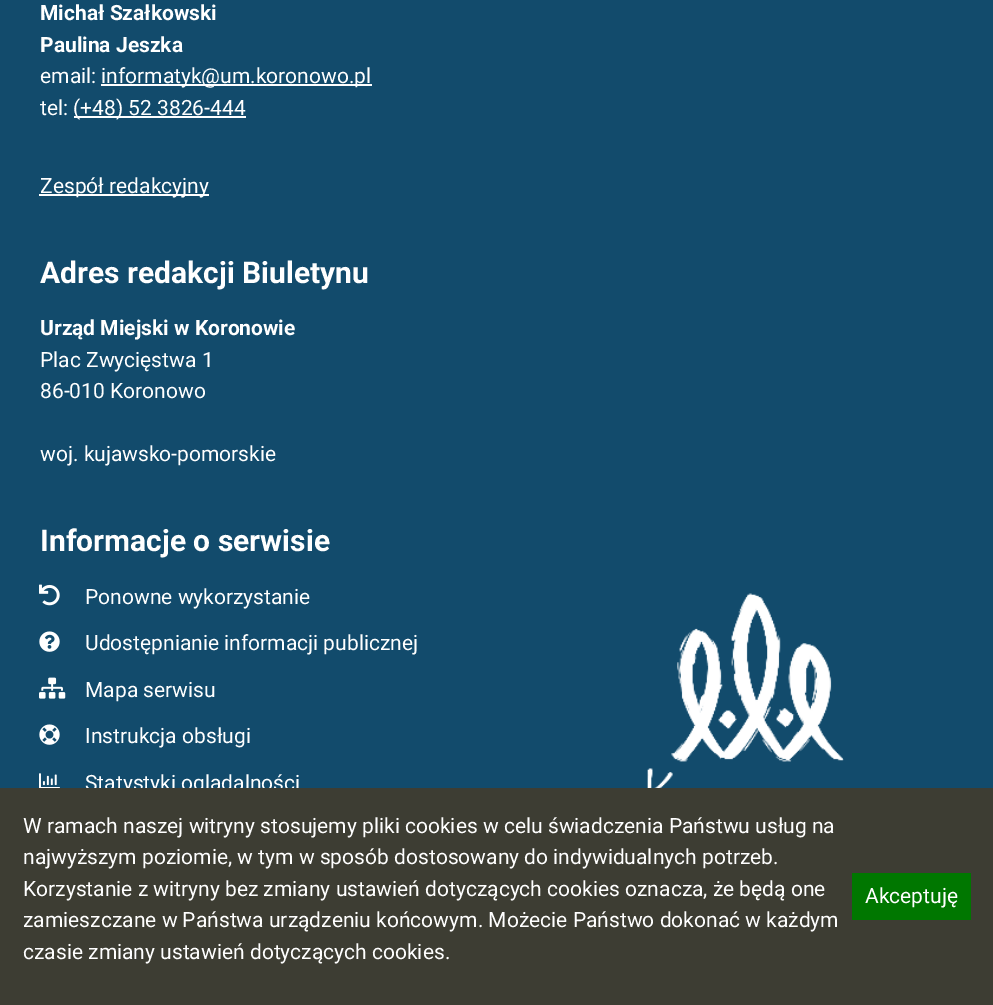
%!PS
<< /PageSize [993 1005] >> setpagedevice
/rgb { dup -16 bitshift 255 div exch dup -8 bitshift 255 and 255 div exch 255 and 255 div setrgbcolor } def
/font { [ exch dup neg 0 0 3 -1 roll 0 0 ] selectfont } def
/text { moveto show } def
/picture { 5 dict begin { /h /w /y /x /name } { exch def } forall
  gsave x y translate w h scale
  w h 8 [w 0 0 h 0 0] name (r) file false 3 colorimage grestore end } def
0 1005 translate 1 -1 scale
4 setmiterlimit
/s1 { /Roboto-Bold 21 font 16#FFFFFF rgb } def
/s2 { /Roboto-Regular 21 font 16#FFFFFF rgb } def
/s3 { /Roboto-Bold 30 font 16#FFFFFF rgb } def
16#124B6C rgb
0 0 993 1005 rectfill
s1
(Michał Szałkowski) 40 20 text
(Paulina Jeszka) 40 52 text
s2
(email:) 40 83 text
101 84 271 2 rectfill
(informatyk@um.koronowo.pl) 101 83 text
(tel:) 40 115 text
74 116 172 2 rectfill
(\(+48\) 52 3826-444) 73 115 text
39 194 170 2 rectfill
(Zespół redakcyjny) 40 193 text
s3
(Adres redakcji Biuletynu) 40 283 text
s1
(Urząd Miejski w Koronowie) 40 335 text
s2
(Plac Zwycięstwa 1) 40 367 text
(86-010 Koronowo) 40 398 text
(woj. kujawsko-pomorskie) 40 461 text
s3
(Informacje o serwisie) 40 551 text
(pic1.raw) 39 584 21 22 picture
s2
(Ponowne wykorzystanie) 85 604 text
(pic2.raw) 647 593 197 195 picture
(pic3.raw) 39 631 21 21 picture
(Udostępnianie informacji publicznej) 85 650 text
(pic4.raw) 39 677 27 22 picture
(Mapa serwisu) 85 697 text
(pic5.raw) 39 724 21 21 picture
(Instrukcja obsługi) 85 743 text
(pic6.raw) 39 773 21 15 picture
(Statystyki oglądalności) 85 790 text
16#3D3D33 rgb
0 788 993 217 rectfill
s2
(W ramach naszej witryny stosujemy pliki cookies w celu świadczenia Państwu usług na) 23 833 text
(najwyższym poziomie, w tym w sposób dostosowany do indywidualnych potrzeb.) 23 864 text
(Korzystanie z witryny bez zmiany ustawień dotyczących cookies oznacza, że będą one) 23 896 text
(zamieszczane w Państwa urządzeniu końcowym. Możecie Państwo dokonać w każdym) 23 927 text
(czasie zmiany ustawień dotyczących cookies.) 23 959 text
16#007700 rgb
852 873 119 47 rectfill
s2
(Akceptuję) 865 903 text
showpage
